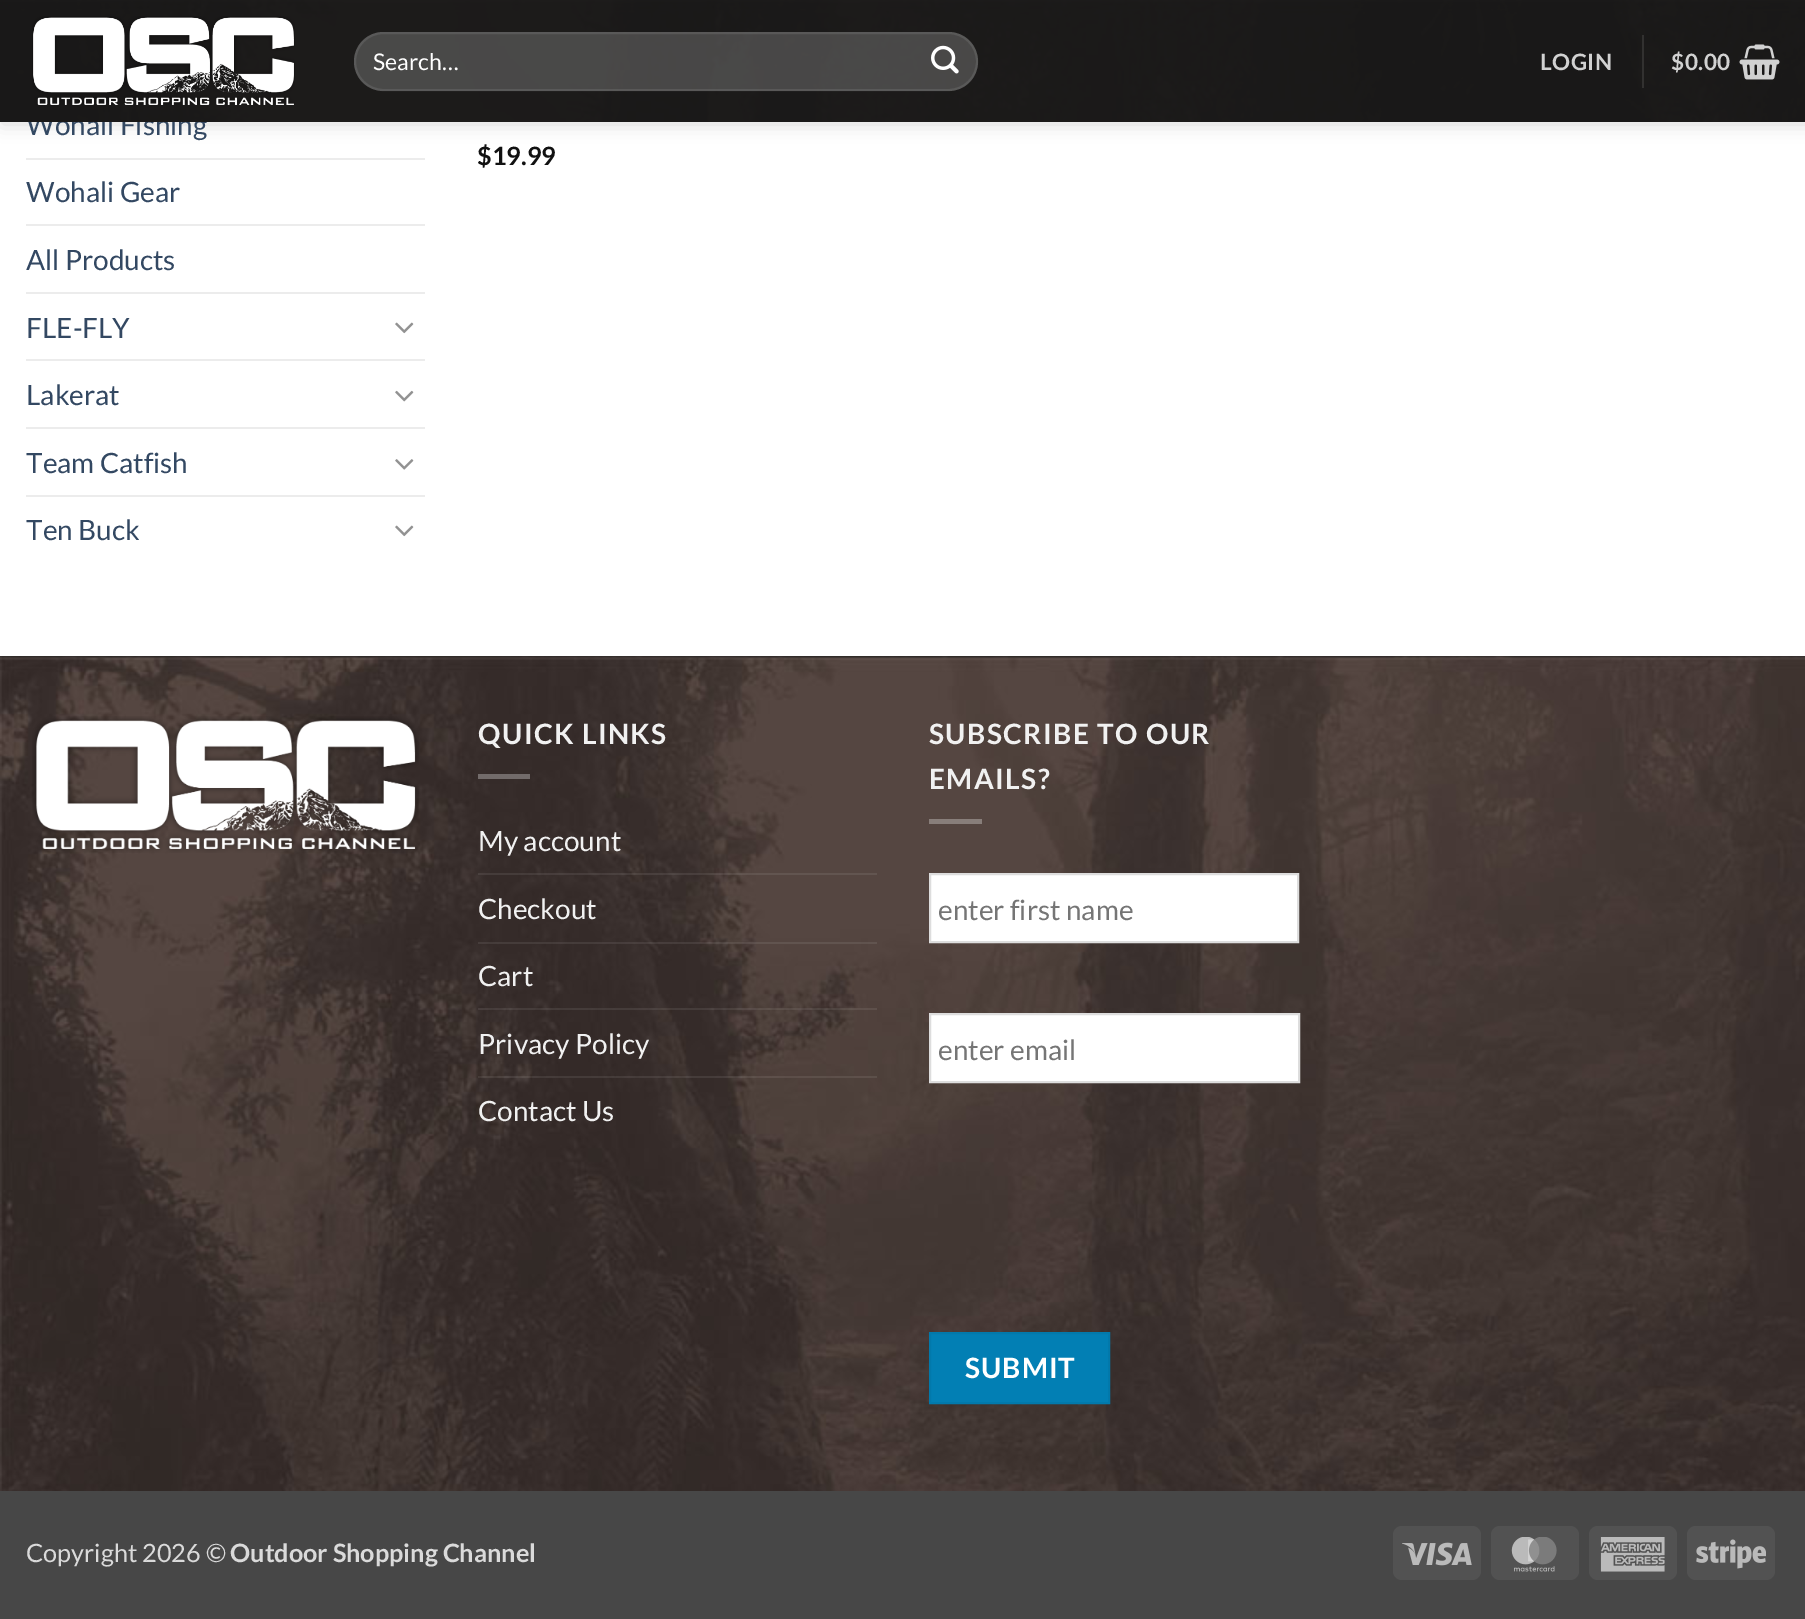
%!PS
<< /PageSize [1805 1619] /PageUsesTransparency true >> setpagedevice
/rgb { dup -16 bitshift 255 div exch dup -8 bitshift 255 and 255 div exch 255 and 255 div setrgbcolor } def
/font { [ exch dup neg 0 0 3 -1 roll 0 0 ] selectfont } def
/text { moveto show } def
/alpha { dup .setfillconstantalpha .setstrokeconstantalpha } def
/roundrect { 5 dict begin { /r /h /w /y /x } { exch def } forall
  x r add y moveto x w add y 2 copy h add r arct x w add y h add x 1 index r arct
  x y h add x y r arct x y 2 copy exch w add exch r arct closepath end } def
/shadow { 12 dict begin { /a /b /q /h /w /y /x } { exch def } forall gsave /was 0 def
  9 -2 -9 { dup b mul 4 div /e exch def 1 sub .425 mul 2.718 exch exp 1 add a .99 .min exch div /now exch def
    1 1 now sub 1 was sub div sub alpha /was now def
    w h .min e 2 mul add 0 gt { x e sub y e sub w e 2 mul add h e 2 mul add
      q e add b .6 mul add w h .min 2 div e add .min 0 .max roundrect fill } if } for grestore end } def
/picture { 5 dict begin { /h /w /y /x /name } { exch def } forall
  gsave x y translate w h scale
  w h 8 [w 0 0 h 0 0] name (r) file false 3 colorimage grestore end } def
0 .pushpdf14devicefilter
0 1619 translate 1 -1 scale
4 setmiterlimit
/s1 { /Lato-Regular 28 font 16#334862 rgb } def
/s2 { /Lato-Regular 23 font 16#FFFFFF rgb } def
/s3 { /Lato-Bold 25.25 font 16#111111 rgb } def
/s4 { /Lato-Regular 28 font 16#F1F1F1 rgb } def
/s5 { /Lato-Regular 28 font 16#757575 rgb } def
/s6 { /Lato-Regular 25.25 font 16#DADADA rgb } def
/s7 { /Lato-Bold 25.25 font 16#DADADA rgb } def
16#FFFFFF rgb
0 0 1805 1619 rectfill
16#000000 rgb
2 2 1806 122 0 9 0.15 shadow
s1
(Wohali Fishing) 26 135 text
(pic1.raw) 0 0 1805 122 picture
(pic2.raw) 32 16 263 89 picture
0.2 alpha
16#FFFFFF rgb
354 32 624 59 29.5 roundrect fill
0.09 alpha
2 setlinewidth
355 33 622 57 28.5 roundrect stroke
1 alpha
s2
(Search…) 373 70 text
(pic3.raw) 931 45 28 29 picture
/Lato-Bold 22.5 font
16#D1D1D1 rgb
1540 70 moveto 0.5 0 (LOGIN) ashow
16#323130 rgb
1642 35 2 53 rectfill
16#D1D1D1 rgb
1671 70 moveto 0.5 0 ($0.00) ashow
(pic4.raw) 1739 44 41 36 picture
16#ECECEC rgb
26 158 399 2 rectfill
s1
(Wohali Gear) 26 202 text
16#ECECEC rgb
26 224 399 2 rectfill
s1
(All Products) 26 270 text
16#ECECEC rgb
26 292 399 2 rectfill
s1
(FLE-FLY) 26 338 text
(pic5.raw) 395 322 19 12 picture
16#ECECEC rgb
26 359 399 2 rectfill
s1
(Lakerat) 26 405 text
(pic6.raw) 395 390 19 12 picture
16#ECECEC rgb
26 427 399 2 rectfill
s1
(Team Catfish) 26 473 text
(pic7.raw) 395 459 19 11 picture
16#ECECEC rgb
26 495 399 2 rectfill
s1
(Ten Buck) 26 540 text
(pic5.raw) 395 525 19 12 picture
s3
($19.99) 477 165 text
(pic8.raw) 0 656 1805 835 picture
0.05 alpha
16#000000 rgb
0 656 1805 2 rectfill
1 alpha
(pic9.raw) 32 716 387 137 picture
/Lato-Bold 28 font
16#F1F1F1 rgb
478 744 moveto 1.4 0 (QUICK LINKS) ashow
16#726B6A rgb
478 774 52 5 rectfill
s4
(My account) 478 851 text
0.08 alpha
16#FFFFFF rgb
478 873 399 2 rectfill
1 alpha
s4
(Checkout) 478 919 text
0.08 alpha
16#FFFFFF rgb
478 942 399 2 rectfill
1 alpha
s4
(Cart) 478 986 text
0.08 alpha
16#FFFFFF rgb
478 1008 399 2 rectfill
1 alpha
s4
(Privacy Policy) 478 1054 text
0.08 alpha
16#FFFFFF rgb
478 1076 399 2 rectfill
1 alpha
s4
(Contact Us) 478 1121 text
/Lato-Bold 28 font
929 744 moveto 1.4 0 (SUBSCRIBE TO OUR) ashow
929 789 moveto 1.4 0 (EMAILS?) ashow
16#887E7A rgb
929 819 53 5 rectfill
16#FFFFFF rgb
930 874 moveto 1298 874 lineto 1298 942 lineto 930 942 lineto closepath gsave fill grestore
16#DDDDDD rgb
stroke
s5
(enter first name) 938 920 text
16#FFFFFF rgb
930 1014 moveto 1299 1014 lineto 1299 1082 lineto 930 1082 lineto closepath gsave fill grestore
16#DDDDDD rgb
stroke
s5
(enter email) 938 1060 text
16#027FB4 rgb
930 1333 moveto 1109 1333 lineto 1109 1403 lineto 930 1403 lineto closepath gsave fill grestore
16#0279AB rgb
stroke
/Lato-Bold 28 font
16#FFFFFF rgb
965 1378 moveto 1 0 (SUBMIT) ashow
16#474747 rgb
0 1491 1805 128 rectfill
s6
(Copyright 2026 ©) 26 1562 text
s7
(Outdoor Shopping Channel) 230 1562 text
16#525252 rgb
1393 1526 88 54 9 roundrect fill
(pic10.raw) 1402 1542 70 24 picture
1491 1526 88 54 9 roundrect fill
(pic11.raw) 1511 1537 46 35 picture
1589 1526 88 54 9 roundrect fill
(pic12.raw) 1600 1537 65 35 picture
1687 1526 88 54 9 roundrect fill
(pic13.raw) 1696 1539 70 30 picture
.poppdf14devicefilter showpage
